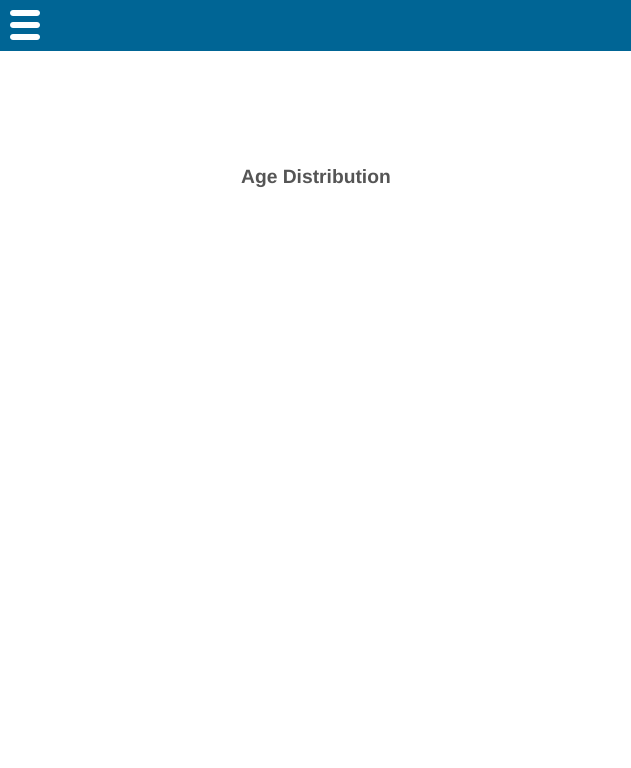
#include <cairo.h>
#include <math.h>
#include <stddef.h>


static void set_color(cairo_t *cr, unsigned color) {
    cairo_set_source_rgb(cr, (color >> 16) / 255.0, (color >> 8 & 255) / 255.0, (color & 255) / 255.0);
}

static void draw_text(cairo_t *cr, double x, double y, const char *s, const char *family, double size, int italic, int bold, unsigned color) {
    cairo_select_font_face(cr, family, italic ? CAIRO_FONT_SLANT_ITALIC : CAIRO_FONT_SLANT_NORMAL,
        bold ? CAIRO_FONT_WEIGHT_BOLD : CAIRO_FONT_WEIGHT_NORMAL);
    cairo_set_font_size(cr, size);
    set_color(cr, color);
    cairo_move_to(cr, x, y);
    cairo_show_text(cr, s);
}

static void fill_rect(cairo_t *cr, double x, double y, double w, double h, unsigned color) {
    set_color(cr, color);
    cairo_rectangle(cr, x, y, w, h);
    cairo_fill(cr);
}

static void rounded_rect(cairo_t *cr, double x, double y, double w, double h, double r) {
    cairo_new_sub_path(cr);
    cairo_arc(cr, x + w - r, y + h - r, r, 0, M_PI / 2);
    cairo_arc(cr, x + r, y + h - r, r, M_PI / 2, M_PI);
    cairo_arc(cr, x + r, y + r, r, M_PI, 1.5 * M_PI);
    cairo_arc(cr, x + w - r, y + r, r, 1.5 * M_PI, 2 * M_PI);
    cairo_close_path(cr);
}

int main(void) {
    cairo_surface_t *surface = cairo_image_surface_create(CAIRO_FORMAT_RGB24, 631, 768);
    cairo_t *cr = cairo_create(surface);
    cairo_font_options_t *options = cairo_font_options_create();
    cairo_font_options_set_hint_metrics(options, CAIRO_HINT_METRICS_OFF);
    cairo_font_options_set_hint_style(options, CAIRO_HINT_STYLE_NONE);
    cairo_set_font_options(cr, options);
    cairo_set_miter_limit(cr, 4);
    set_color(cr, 0xFFFFFF);
    cairo_paint(cr);
    fill_rect(cr, 0, 0, 631, 51, 0x006595);
    set_color(cr, 0xFFFFFF);
    rounded_rect(cr, 10, 10, 30, 6, 3);
    cairo_fill(cr);
    rounded_rect(cr, 10, 22, 30, 6, 3);
    cairo_fill(cr);
    rounded_rect(cr, 10, 34, 30, 6, 3);
    cairo_fill(cr);
    draw_text(cr, 241, 183, "Age Distribution", "Liberation Sans", 19.25, 0, 1, 0x555555);
    cairo_surface_write_to_png(surface, "output.png");
    cairo_font_options_destroy(options);
    cairo_destroy(cr);
    cairo_surface_destroy(surface);
    return 0;
}
